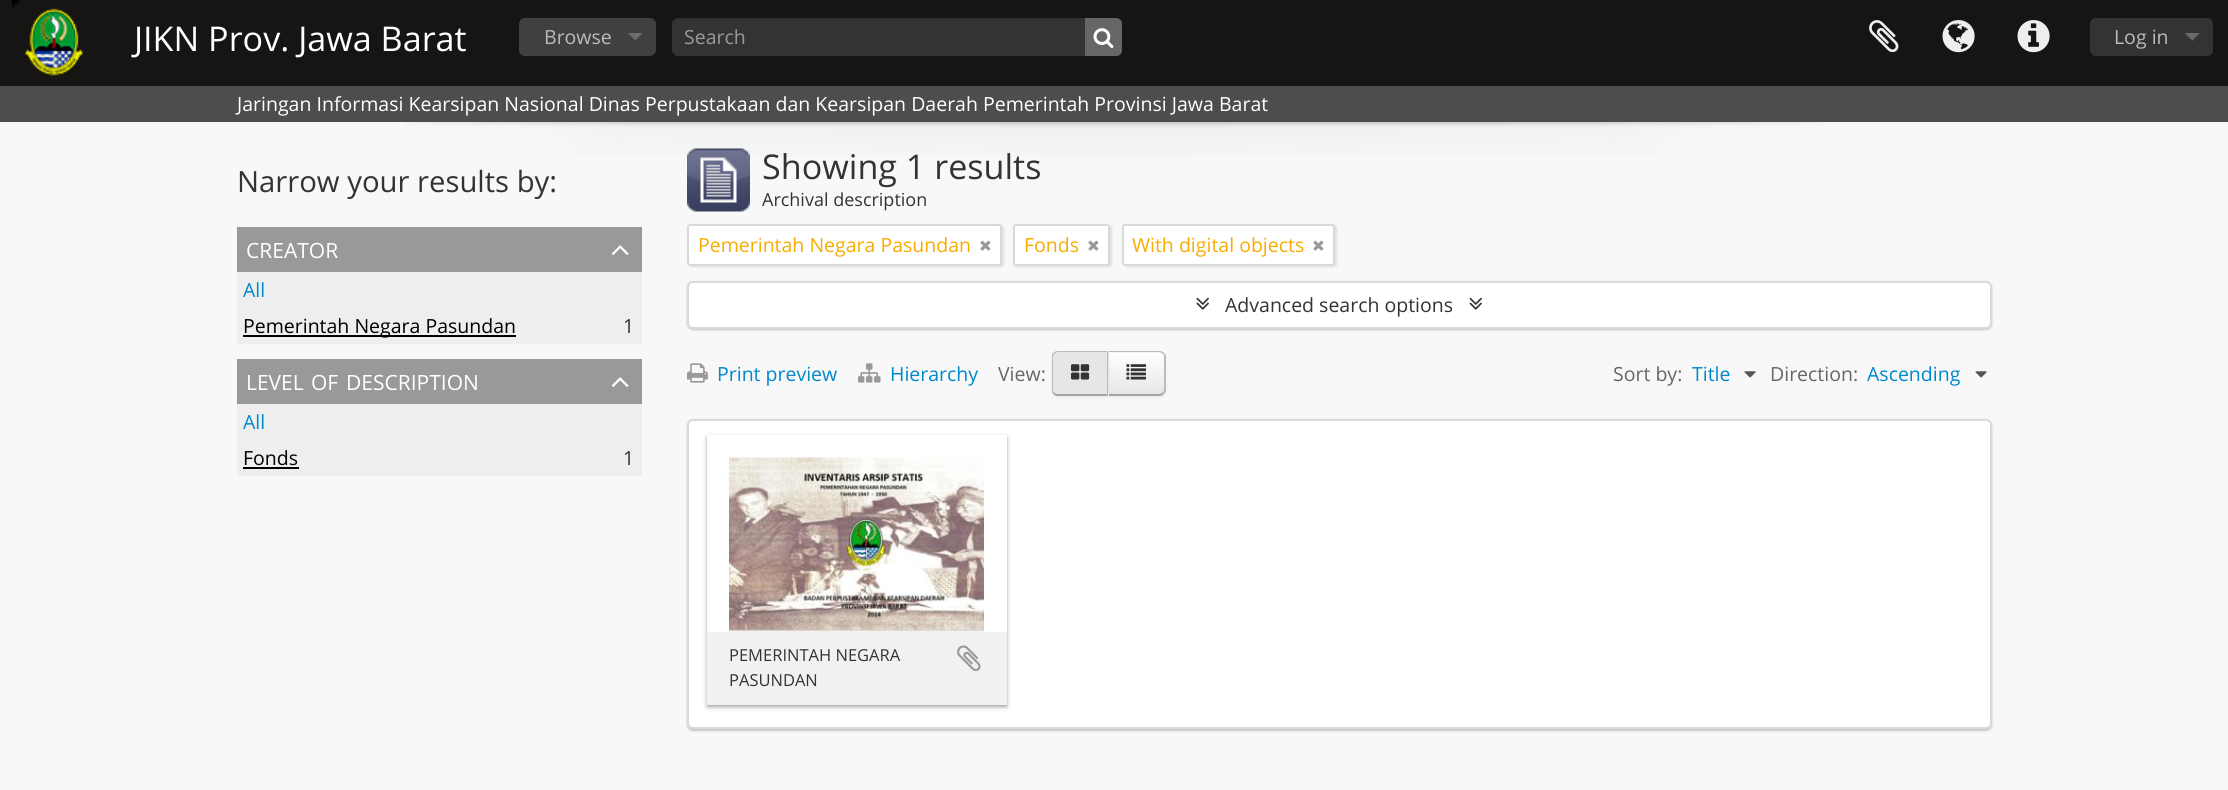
#include <cairo.h>
#include <math.h>
#include <stddef.h>


static void set_color(cairo_t *cr, unsigned color) {
    cairo_set_source_rgb(cr, (color >> 16) / 255.0, (color >> 8 & 255) / 255.0, (color & 255) / 255.0);
}

static void draw_text(cairo_t *cr, double x, double y, const char *s, const char *family, double size, int italic, int bold, unsigned color) {
    cairo_select_font_face(cr, family, italic ? CAIRO_FONT_SLANT_ITALIC : CAIRO_FONT_SLANT_NORMAL,
        bold ? CAIRO_FONT_WEIGHT_BOLD : CAIRO_FONT_WEIGHT_NORMAL);
    cairo_set_font_size(cr, size);
    set_color(cr, color);
    cairo_move_to(cr, x, y);
    cairo_show_text(cr, s);
}

static void fill_rect(cairo_t *cr, double x, double y, double w, double h, unsigned color) {
    set_color(cr, color);
    cairo_rectangle(cr, x, y, w, h);
    cairo_fill(cr);
}

static void rounded_rect(cairo_t *cr, double x, double y, double w, double h, double r) {
    cairo_new_sub_path(cr);
    cairo_arc(cr, x + w - r, y + h - r, r, 0, M_PI / 2);
    cairo_arc(cr, x + r, y + h - r, r, M_PI / 2, M_PI);
    cairo_arc(cr, x + r, y + r, r, M_PI, 1.5 * M_PI);
    cairo_arc(cr, x + w - r, y + r, r, 1.5 * M_PI, 2 * M_PI);
    cairo_close_path(cr);
}

static void draw_shadow(cairo_t *cr, double x, double y, double w, double h, double r, double blur, double alpha) {
    cairo_push_group_with_content(cr, CAIRO_CONTENT_ALPHA);
    cairo_set_operator(cr, CAIRO_OPERATOR_SOURCE);
    for (int i = 15; i >= -15 && fmin(w, h) + blur * i / 3 > 0; i -= 2) {
        double e = blur * i / 6;
        cairo_set_source_rgba(cr, 0, 0, 0, alpha * erfc((i - 1) / 8.5) / 2);
        rounded_rect(cr, x - e, y - e, w + 2 * e, h + 2 * e, fmax(0, fmin(r + e + blur * .6, fmin(w, h) / 2 + e)));
        cairo_fill(cr);
    }
    cairo_pattern_t *soft = cairo_pop_group(cr);
    cairo_mask(cr, soft);
    cairo_pattern_destroy(soft);
}

static void draw_image(cairo_t *cr, const char *path, double x, double y, double w, double h) {
    cairo_surface_t *image = cairo_image_surface_create_from_png(path);
    cairo_save(cr);
    cairo_set_source_surface(cr, image, x, y);
    cairo_rectangle(cr, x, y, w, h);
    cairo_fill(cr);
    cairo_restore(cr);
    cairo_surface_destroy(image);
}

int main(void) {
    cairo_surface_t *surface = cairo_image_surface_create(CAIRO_FORMAT_RGB24, 2228, 790);
    cairo_t *cr = cairo_create(surface);
    cairo_font_options_t *options = cairo_font_options_create();
    cairo_font_options_set_hint_metrics(options, CAIRO_HINT_METRICS_OFF);
    cairo_font_options_set_hint_style(options, CAIRO_HINT_STYLE_NONE);
    cairo_set_font_options(cr, options);
    cairo_set_miter_limit(cr, 4);
    cairo_pattern_t *gradient;
    set_color(cr, 0xF8F8F8);
    cairo_paint(cr);
    fill_rect(cr, 0, 0, 2228, 86, 0x161514);
    draw_image(cr, "assets/img1.png", 12, 0, 71, 76);
    draw_text(cr, 134, 51, "JIKN Prov. Jawa Barat", "Open Sans", 34.1, 0, 0, 0xFFFFFF);
    set_color(cr, 0x404040);
    rounded_rect(cr, 519, 18, 137, 38, 6);
    cairo_fill(cr);
    draw_image(cr, "assets/img2.png", 628, 33, 15, 8);
    draw_text(cr, 544, 44, "Browse", "Open Sans", 19.5, 0, 0, 0xBBBBBB);
    set_color(cr, 0x333333);
    rounded_rect(cr, 672, 18, 450, 38, 6);
    cairo_fill(cr);
    cairo_set_source_rgba(cr, 0, 0, 0, 0.07);
    cairo_new_path(cr);
    cairo_move_to(cr, 678, 20);
    cairo_line_to(cr, 1116, 20);
    cairo_curve_to(cr, 1119, 20, 1122, 22, 1122, 26);
    cairo_line_to(cr, 1122, 24);
    cairo_curve_to(cr, 1122, 21, 1119, 18, 1116, 18);
    cairo_line_to(cr, 678, 18);
    cairo_curve_to(cr, 675, 18, 672, 21, 672, 24);
    cairo_line_to(cr, 672, 26);
    cairo_curve_to(cr, 672, 22, 675, 20, 678, 20);
    cairo_close_path(cr);
    cairo_fill(cr);
    draw_text(cr, 684, 44, "Search", "Open Sans", 19.5, 0, 0, 0x999999);
    set_color(cr, 0x666666);
    cairo_new_path(cr);
    cairo_move_to(cr, 1085, 18);
    cairo_line_to(cr, 1116, 18);
    cairo_curve_to(cr, 1119.5, 18, 1122, 20.5, 1122, 24);
    cairo_line_to(cr, 1122, 50);
    cairo_curve_to(cr, 1122, 53.5, 1119.5, 56, 1116, 56);
    cairo_line_to(cr, 1085, 56);
    cairo_close_path(cr);
    cairo_fill(cr);
    draw_image(cr, "assets/img3.png", 1093, 28, 21, 20);
    draw_image(cr, "assets/img4.png", 1869, 20, 30, 33);
    draw_image(cr, "assets/img5.png", 1942, 20, 33, 33);
    draw_image(cr, "assets/img6.png", 2017, 20, 33, 33);
    set_color(cr, 0x333333);
    rounded_rect(cr, 2090, 18, 123, 38, 6);
    cairo_fill(cr);
    draw_image(cr, "assets/img7.png", 2185, 33, 15, 8);
    draw_text(cr, 2114, 44, "Log in", "Open Sans", 19.5, 0, 0, 0xBBBBBB);
    draw_image(cr, "assets/img8.png", 405, 121, 1419, 36);
    cairo_set_source_rgba(cr, 0.086, 0.082, 0.078, 0.75);
    cairo_rectangle(cr, 0, 86, 2228, 36);
    cairo_fill(cr);
    draw_text(cr, 237, 111, "Jaringan Informasi Kearsipan Nasional Dinas Perpustakaan dan Kearsipan Daerah Pemerintah Provinsi Jawa Barat", "Open Sans", 19.5, 0, 0, 0xFFFFFF);
    draw_text(cr, 237, 192, "Narrow your results by:", "Open Sans", 29.25, 0, 0, 0x333333);
    fill_rect(cr, 237, 227, 405, 45, 0x999999);
    draw_text(cr, 246, 258, "CREATOR", "Open Sans", 21, 0, 0, 0xFFFFFF);
    draw_image(cr, "assets/img9.png", 611, 245, 18, 10);
    fill_rect(cr, 237, 272, 405, 72, 0xEEEEEE);
    draw_text(cr, 243, 297, "All", "Open Sans", 19.5, 0, 0, 0x0088CC);
    fill_rect(cr, 243, 335, 273, 2, 0x000000);
    draw_text(cr, 243, 333, "Pemerintah Negara Pasundan", "Open Sans", 19.5, 0, 0, 0x000000);
    draw_text(cr, 623, 333, "1", "Open Sans", 19.5, 0, 0, 0x333333);
    fill_rect(cr, 237, 359, 405, 45, 0x999999);
    draw_text(cr, 246, 390, "LEVEL", "Open Sans", 21, 0, 0, 0xFFFFFF);
    draw_text(cr, 311, 390, "OF", "Open Sans", 21, 0, 0, 0xFFFFFF);
    draw_text(cr, 346, 390, "DESCRIPTION", "Open Sans", 21, 0, 0, 0xFFFFFF);
    draw_image(cr, "assets/img9.png", 611, 377, 18, 10);
    fill_rect(cr, 237, 404, 405, 72, 0xEEEEEE);
    draw_text(cr, 243, 429, "All", "Open Sans", 19.5, 0, 0, 0x0088CC);
    draw_text(cr, 243, 465, "Fonds", "Open Sans", 19.5, 0, 0, 0x000000);
    fill_rect(cr, 243, 467, 56, 2, 0x000000);
    draw_text(cr, 623, 465, "1", "Open Sans", 19.5, 0, 0, 0x333333);
    draw_image(cr, "assets/img10.png", 687, 148, 63, 64);
    draw_text(cr, 762, 179, "Showing 1 results", "Open Sans", 34.1, 0, 0, 0x333333);
    draw_text(cr, 762, 206, "Archival description", "Open Sans", 18, 0, 0, 0x333333);
    set_color(cr, 0x000000);
    draw_shadow(cr, 689, 225, 315, 42, 3, 1, 0.1);
    set_color(cr, 0xFFFFFF);
    rounded_rect(cr, 688, 225, 313, 40, 2);
    cairo_fill_preserve(cr);
    set_color(cr, 0xD9D9D9);
    cairo_stroke(cr);
    draw_text(cr, 698, 252, "Pemerintah Negara Pasundan", "Open Sans", 19.5, 0, 0, 0xF6AC00);
    draw_image(cr, "assets/img11.png", 980, 240, 11, 11);
    set_color(cr, 0x000000);
    draw_shadow(cr, 1014, 225, 98, 42, 3, 1, 0.1);
    set_color(cr, 0xFFFFFF);
    rounded_rect(cr, 1014, 225, 95, 40, 2);
    cairo_fill_preserve(cr);
    set_color(cr, 0xD9D9D9);
    cairo_stroke(cr);
    draw_text(cr, 1024, 252, "Fonds", "Open Sans", 19.5, 0, 0, 0xF6AC00);
    draw_image(cr, "assets/img11.png", 1088, 240, 11, 11);
    set_color(cr, 0x000000);
    draw_shadow(cr, 1124, 225, 213, 42, 3, 1, 0.1);
    set_color(cr, 0xFFFFFF);
    rounded_rect(cr, 1123, 225, 211, 40, 2);
    cairo_fill_preserve(cr);
    set_color(cr, 0xD9D9D9);
    cairo_stroke(cr);
    draw_text(cr, 1132, 252, "With digital objects", "Open Sans", 19.5, 0, 0, 0xF6AC00);
    draw_image(cr, "assets/img11.png", 1313, 240, 11, 11);
    set_color(cr, 0x000000);
    draw_shadow(cr, 687, 282, 1305, 48, 6, 1, 0.2);
    set_color(cr, 0xFFFFFF);
    rounded_rect(cr, 688, 282, 1303, 46, 5);
    cairo_fill_preserve(cr);
    set_color(cr, 0xD9D9D9);
    cairo_stroke(cr);
    draw_image(cr, "assets/img12.png", 1196, 297, 13, 13);
    draw_text(cr, 1225, 312, "Advanced search options", "Open Sans", 19.5, 0, 0, 0x333333);
    draw_image(cr, "assets/img12.png", 1469, 297, 13, 13);
    draw_image(cr, "assets/img13.png", 687, 363, 21, 20);
    draw_text(cr, 717, 381, "Print preview", "Open Sans", 19.5, 0, 0, 0x0088CC);
    draw_image(cr, "assets/img14.png", 858, 363, 23, 20);
    draw_text(cr, 890, 381, "Hierarchy", "Open Sans", 19.5, 0, 0, 0x0088CC);
    draw_text(cr, 998, 381, "View:", "Open Sans", 19.5, 0, 0, 0x666666);
    set_color(cr, 0x000000);
    draw_shadow(cr, 1107, 353, 59, 45, 6, 1.5, 0.05);
    set_color(cr, 0xF5F5F5);
    cairo_new_path(cr);
    cairo_move_to(cr, 1107, 351);
    cairo_line_to(cr, 1160, 351);
    cairo_curve_to(cr, 1163.5, 351, 1166, 353.5, 1166, 357);
    cairo_line_to(cr, 1166, 390);
    cairo_curve_to(cr, 1166, 393.5, 1163.5, 396, 1160, 396);
    cairo_line_to(cr, 1107, 396);
    cairo_close_path(cr);
    cairo_fill(cr);
    cairo_save(cr);
    cairo_new_path(cr);
    cairo_move_to(cr, 1107, 351);
    cairo_line_to(cr, 1160, 351);
    cairo_curve_to(cr, 1163.5, 351, 1166, 353.5, 1166, 357);
    cairo_line_to(cr, 1166, 390);
    cairo_curve_to(cr, 1166, 393.5, 1163.5, 396, 1160, 396);
    cairo_line_to(cr, 1107, 396);
    cairo_close_path(cr);
    cairo_clip(cr);
    gradient = cairo_pattern_create_linear(1136, 353, 1136, 395);
    cairo_pattern_add_color_stop_rgba(gradient, 0, 1, 1, 1, 1);
    cairo_pattern_add_color_stop_rgba(gradient, 1, 0.902, 0.902, 0.902, 1);
    cairo_set_source(cr, gradient);
    cairo_pattern_destroy(gradient);
    cairo_rectangle(cr, 1109, 353, 57, 42);
    cairo_fill(cr);
    cairo_restore(cr);
    set_color(cr, 0xBBBBBB);
    cairo_new_path(cr);
    cairo_move_to(cr, 1107, 351);
    cairo_line_to(cr, 1108, 352);
    cairo_line_to(cr, 1160, 352);
    cairo_line_to(cr, 1163, 354);
    cairo_line_to(cr, 1164, 353);
    cairo_curve_to(cr, 1163, 352, 1161, 351, 1160, 351);
    cairo_close_path(cr);
    cairo_fill(cr);
    cairo_new_path(cr);
    cairo_move_to(cr, 1166, 392);
    cairo_line_to(cr, 1164, 394);
    cairo_line_to(cr, 1162, 393);
    cairo_curve_to(cr, 1163, 392, 1164, 391, 1164, 390);
    cairo_line_to(cr, 1164, 357);
    cairo_curve_to(cr, 1164, 356, 1164, 355, 1163, 354);
    cairo_line_to(cr, 1164, 353);
    cairo_line_to(cr, 1166, 355);
    cairo_close_path(cr);
    cairo_fill(cr);
    set_color(cr, 0xA2A2A2);
    cairo_new_path(cr);
    cairo_move_to(cr, 1160, 396);
    cairo_curve_to(cr, 1161, 396, 1163, 395, 1164, 394);
    cairo_line_to(cr, 1162, 393);
    cairo_line_to(cr, 1160, 394);
    cairo_line_to(cr, 1109, 394);
    cairo_line_to(cr, 1107, 396);
    cairo_close_path(cr);
    cairo_fill(cr);
    set_color(cr, 0x000000);
    draw_shadow(cr, 1052, 353, 57, 45, 6, 1.5, 0.05);
    set_color(cr, 0xE6E6E6);
    cairo_new_path(cr);
    cairo_move_to(cr, 1058, 351);
    cairo_line_to(cr, 1109, 351);
    cairo_line_to(cr, 1109, 396);
    cairo_line_to(cr, 1058, 396);
    cairo_curve_to(cr, 1054.5, 396, 1052, 393.5, 1052, 390);
    cairo_line_to(cr, 1052, 357);
    cairo_curve_to(cr, 1052, 353.5, 1054.5, 351, 1058, 351);
    cairo_close_path(cr);
    cairo_fill(cr);
    set_color(cr, 0xBBBBBB);
    cairo_new_path(cr);
    cairo_move_to(cr, 1058, 351);
    cairo_curve_to(cr, 1056, 351, 1054, 352, 1053, 353);
    cairo_line_to(cr, 1054, 354);
    cairo_line_to(cr, 1057, 352);
    cairo_line_to(cr, 1107, 352);
    cairo_line_to(cr, 1108, 351);
    cairo_close_path(cr);
    cairo_fill(cr);
    cairo_new_path(cr);
    cairo_move_to(cr, 1108, 352);
    cairo_line_to(cr, 1108, 396);
    cairo_line_to(cr, 1106, 394);
    cairo_line_to(cr, 1107, 394);
    cairo_line_to(cr, 1107, 352);
    cairo_close_path(cr);
    cairo_fill(cr);
    set_color(cr, 0xA2A2A2);
    cairo_new_path(cr);
    cairo_move_to(cr, 1058, 396);
    cairo_line_to(cr, 1108, 396);
    cairo_line_to(cr, 1106, 394);
    cairo_line_to(cr, 1058, 394);
    cairo_curve_to(cr, 1057, 394, 1055, 394, 1055, 393);
    cairo_line_to(cr, 1053, 394);
    cairo_curve_to(cr, 1054, 395, 1056, 396, 1058, 396);
    cairo_close_path(cr);
    cairo_fill(cr);
    set_color(cr, 0xBBBBBB);
    cairo_new_path(cr);
    cairo_move_to(cr, 1053, 353);
    cairo_curve_to(cr, 1052, 354, 1052, 356, 1052, 357);
    cairo_line_to(cr, 1052, 390);
    cairo_curve_to(cr, 1052, 391, 1052, 393, 1053, 394);
    cairo_line_to(cr, 1055, 393);
    cairo_curve_to(cr, 1054, 392, 1053, 391, 1053, 390);
    cairo_line_to(cr, 1053, 357);
    cairo_curve_to(cr, 1053, 356, 1053, 355, 1054, 354);
    cairo_close_path(cr);
    cairo_fill(cr);
    draw_image(cr, "assets/img15.png", 1071, 364, 19, 16);
    draw_image(cr, "assets/img16.png", 1126, 364, 20, 16);
    draw_text(cr, 1613, 381, "Sort by:", "Open Sans", 19.5, 0, 0, 0x666666);
    draw_text(cr, 1692, 381, "Title", "Open Sans", 19.5, 0, 0, 0x0088CC);
    draw_image(cr, "assets/img17.png", 1744, 371, 12, 7);
    draw_text(cr, 1770, 381, "Direction:", "Open Sans", 19.5, 0, 0, 0x666666);
    draw_text(cr, 1867, 381, "Ascending", "Open Sans", 19.5, 0, 0, 0x0088CC);
    draw_image(cr, "assets/img17.png", 1975, 371, 12, 7);
    set_color(cr, 0x000000);
    draw_shadow(cr, 687, 420, 1305, 311, 6, 1, 0.2);
    set_color(cr, 0xFFFFFF);
    rounded_rect(cr, 688, 420, 1303, 308, 5);
    cairo_fill_preserve(cr);
    set_color(cr, 0xD9D9D9);
    cairo_stroke(cr);
    set_color(cr, 0x191919);
    draw_shadow(cr, 707, 437, 300, 270, 0, 2, 0.4);
    fill_rect(cr, 707, 435, 300, 197, 0xFFFFFF);
    draw_image(cr, "assets/img18.png", 729, 457, 255, 175);
    fill_rect(cr, 707, 632, 300, 73, 0xF2F0F0);
    draw_text(cr, 729, 661, "PEMERINTAH NEGARA", "Open Sans", 16.5, 0, 0, 0x333333);
    draw_image(cr, "assets/img19.png", 957, 645, 24, 26);
    draw_text(cr, 729, 686, "PASUNDAN", "Open Sans", 16.5, 0, 0, 0x333333);
    cairo_surface_write_to_png(surface, "output.png");
    cairo_font_options_destroy(options);
    cairo_destroy(cr);
    cairo_surface_destroy(surface);
    return 0;
}
